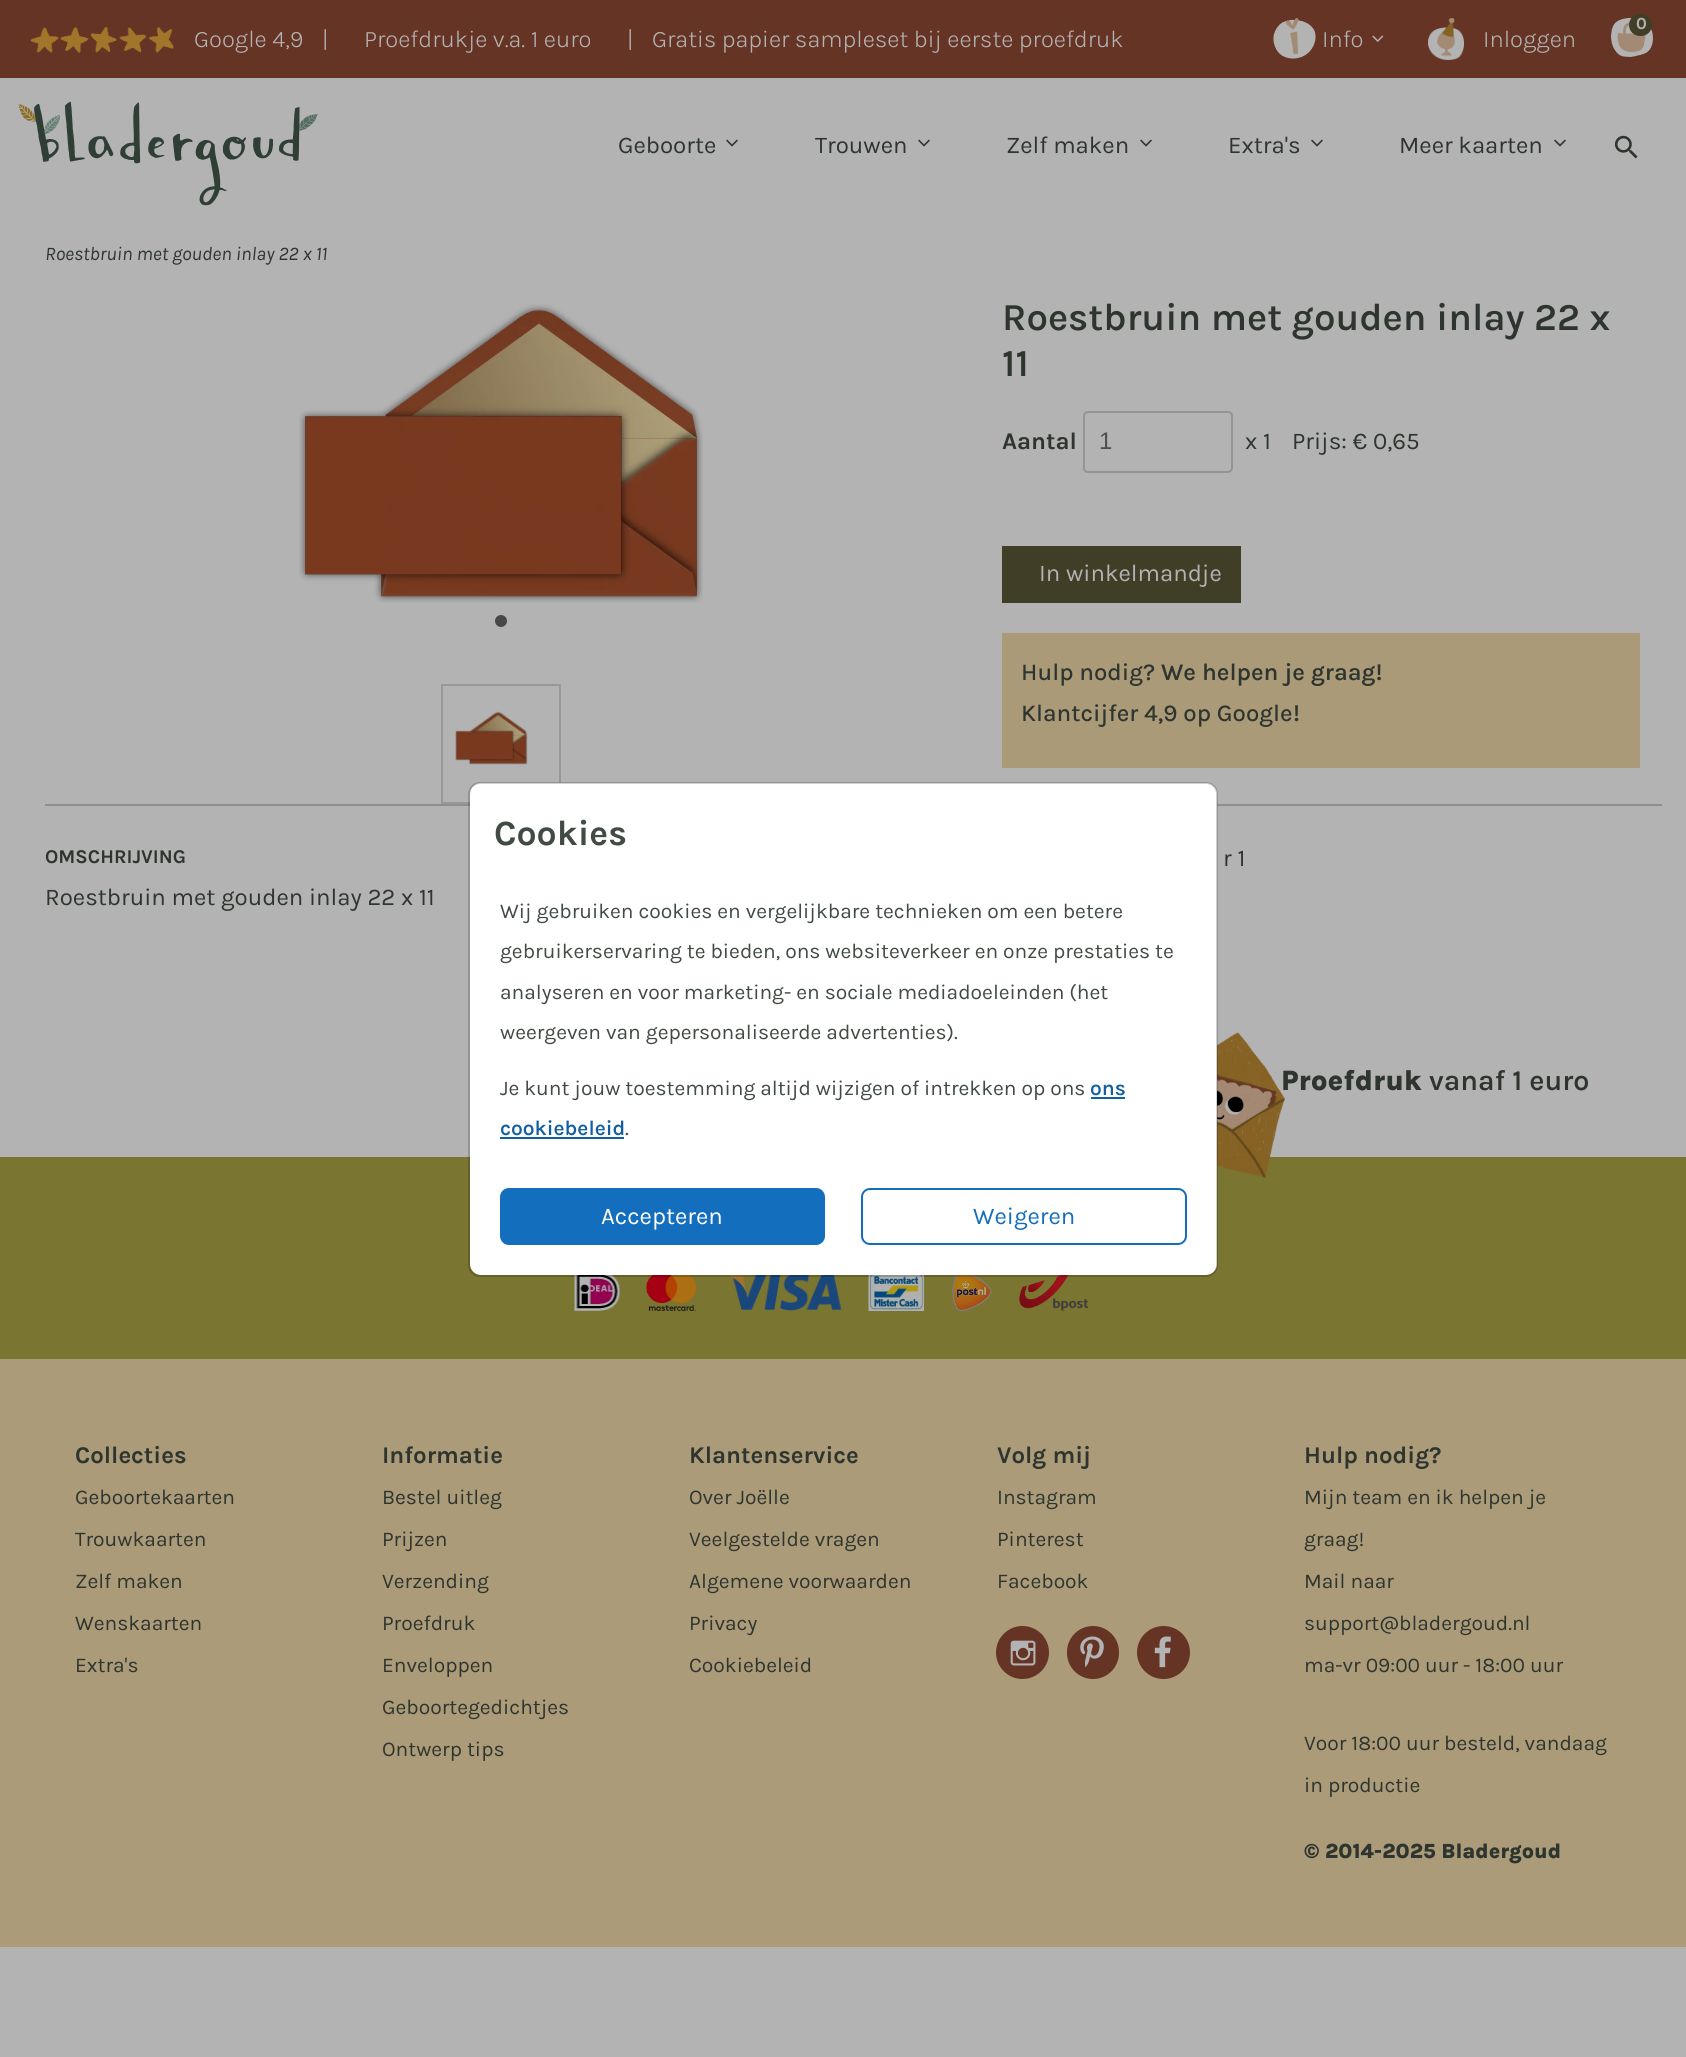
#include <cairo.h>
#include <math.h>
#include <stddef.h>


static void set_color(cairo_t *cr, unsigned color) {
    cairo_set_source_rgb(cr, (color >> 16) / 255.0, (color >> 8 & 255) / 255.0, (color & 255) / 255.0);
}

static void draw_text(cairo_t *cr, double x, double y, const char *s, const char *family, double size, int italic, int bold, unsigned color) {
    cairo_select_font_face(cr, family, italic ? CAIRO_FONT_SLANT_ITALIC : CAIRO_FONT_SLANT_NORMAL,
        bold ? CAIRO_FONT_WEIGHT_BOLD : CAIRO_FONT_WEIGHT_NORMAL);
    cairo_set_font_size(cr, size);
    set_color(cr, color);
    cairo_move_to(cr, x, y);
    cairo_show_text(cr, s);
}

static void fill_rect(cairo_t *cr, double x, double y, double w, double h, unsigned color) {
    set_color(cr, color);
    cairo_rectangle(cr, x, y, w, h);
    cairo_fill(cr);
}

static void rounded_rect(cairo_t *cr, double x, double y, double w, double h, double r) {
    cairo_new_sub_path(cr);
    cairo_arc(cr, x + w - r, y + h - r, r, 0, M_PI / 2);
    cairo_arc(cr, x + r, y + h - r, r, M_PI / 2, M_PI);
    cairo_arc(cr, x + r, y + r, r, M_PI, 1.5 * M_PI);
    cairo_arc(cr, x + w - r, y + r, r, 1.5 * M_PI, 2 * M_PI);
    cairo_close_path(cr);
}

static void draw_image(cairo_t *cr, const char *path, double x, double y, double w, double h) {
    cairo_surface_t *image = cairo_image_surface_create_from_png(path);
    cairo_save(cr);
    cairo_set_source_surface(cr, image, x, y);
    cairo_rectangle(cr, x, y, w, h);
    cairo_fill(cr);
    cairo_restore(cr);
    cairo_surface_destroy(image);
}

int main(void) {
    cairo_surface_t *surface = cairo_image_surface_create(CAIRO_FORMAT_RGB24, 1686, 2057);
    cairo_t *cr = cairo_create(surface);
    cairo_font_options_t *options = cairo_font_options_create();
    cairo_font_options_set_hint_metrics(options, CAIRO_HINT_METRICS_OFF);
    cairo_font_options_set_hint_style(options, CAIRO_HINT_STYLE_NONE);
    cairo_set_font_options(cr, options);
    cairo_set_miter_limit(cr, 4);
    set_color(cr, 0xB3B3B3);
    cairo_paint(cr);
    fill_rect(cr, 0, 0, 1686, 78, 0x663424);
    draw_image(cr, "assets/img1.png", 30, 27, 144, 26);
    draw_text(cr, 194, 47, "Google 4,9", "Karla Light", 24, 0, 0, 0xB3B3B3);
    draw_text(cr, 322, 47, "|", "Karla Light", 24, 0, 0, 0xB3B3B3);
    draw_text(cr, 364, 47, "Proefdrukje v.a. 1 euro", "Karla Light", 24, 0, 0, 0xB3B3B3);
    draw_text(cr, 627, 47, "|", "Karla Light", 24, 0, 0, 0xB3B3B3);
    draw_text(cr, 652, 47, "Gratis papier sampleset bij eerste proefdruk", "Karla Light", 24, 0, 0, 0xB3B3B3);
    draw_image(cr, "assets/img2.png", 1273, 18, 43, 41);
    draw_text(cr, 1322, 47, "Info", "Karla Light", 24, 0, 0, 0xB3B3B3);
    draw_image(cr, "assets/img3.png", 1372, 35, 12, 7);
    draw_image(cr, "assets/img4.png", 1611, 18, 42, 39);
    set_color(cr, 0x403E27);
    rounded_rect(cr, 1629, 14, 23, 22, 11);
    cairo_fill(cr);
    draw_text(cr, 1636, 29, "0", "Karla", 17, 0, 1, 0xB3B3B3);
    draw_image(cr, "assets/img5.png", 1428, 18, 36, 42);
    draw_text(cr, 1483, 47, "Inloggen", "Karla Light", 24, 0, 0, 0xB3B3B3);
    draw_image(cr, "assets/img6.png", 18, 101, 300, 105);
    draw_text(cr, 618, 153, "Geboorte", "Karla", 24, 0, 0, 0x2E352F);
    draw_image(cr, "assets/img7.png", 726, 139, 12, 8);
    draw_text(cr, 815, 153, "Trouwen", "Karla", 24, 0, 0, 0x2E352F);
    draw_image(cr, "assets/img7.png", 918, 139, 12, 8);
    draw_text(cr, 1006, 153, "Zelf maken", "Karla", 24, 0, 0, 0x2E352F);
    draw_image(cr, "assets/img7.png", 1140, 139, 12, 8);
    draw_text(cr, 1228, 153, "Extra's", "Karla", 24, 0, 0, 0x2E352F);
    draw_image(cr, "assets/img7.png", 1311, 139, 12, 8);
    draw_text(cr, 1399, 153, "Meer kaarten", "Karla", 24, 0, 0, 0x2E352F);
    draw_image(cr, "assets/img7.png", 1554, 139, 12, 8);
    draw_image(cr, "assets/img8.png", 1614, 135, 24, 24);
    draw_text(cr, 45, 260, "Roestbruin met gouden inlay 22 x 11", "Karla", 19.25, 1, 0, 0x2E352F);
    draw_image(cr, "assets/img9.png", 299, 304, 404, 299);
    set_color(cr, 0x484848);
    cairo_arc(cr, 501, 621, 6, 0, 2 * M_PI);
    cairo_fill(cr);
    cairo_rectangle(cr, 442, 685, 118, 118);
    set_color(cr, 0x989898);
    cairo_stroke(cr);
    draw_image(cr, "assets/img10.png", 455, 711, 73, 54);
    draw_text(cr, 1002, 330, "Roestbruin met gouden inlay 22 x", "Karla SemiBold", 38.4, 0, 0, 0x2E352F);
    draw_text(cr, 1002, 376, "11", "Karla SemiBold", 38.4, 0, 0, 0x2E352F);
    draw_text(cr, 1002, 449, "Aantal", "Karla", 24, 0, 1, 0x2E352F);
    rounded_rect(cr, 1084, 412, 148, 60, 4);
    set_color(cr, 0x949494);
    cairo_stroke(cr);
    draw_text(cr, 1099, 449, "1", "Liberation Sans", 24, 0, 0, 0x4D5053);
    draw_text(cr, 1245, 449, "x 1", "Karla", 24, 0, 0, 0x2E352F);
    draw_text(cr, 1292, 449, "Prijs: € 0,65", "Karla", 24, 0, 0, 0x2E352F);
    fill_rect(cr, 1002, 546, 239, 57, 0x403E27);
    draw_text(cr, 1039, 581, "In winkelmandje", "Karla", 24, 0, 0, 0xB3B3B3);
    fill_rect(cr, 1002, 633, 638, 135, 0xAB9A78);
    draw_text(cr, 1021, 680, "Hulp nodig?", "Karla Medium", 24, 0, 0, 0x2E352F);
    draw_text(cr, 1161, 680, "We helpen je graag!", "Karla SemiBold", 24, 0, 0, 0x2E352F);
    draw_text(cr, 1021, 721, "Klantcijfer 4,9 op Google", "Karla Medium", 24, 0, 0, 0x2E352F);
    draw_text(cr, 1293, 721, "!", "Karla SemiBold", 24, 0, 0, 0x2E352F);
    fill_rect(cr, 45, 804, 425, 2, 0x8F8F8F);
    draw_text(cr, 45, 863, "OMSCHRIJVING", "Karla", 19.5, 0, 1, 0x2E352F);
    draw_text(cr, 45, 905, "Roestbruin met gouden inlay 22 x 11", "Karla", 24, 0, 0, 0x2E352F);
    fill_rect(cr, 1217, 804, 445, 2, 0x8F8F8F);
    draw_text(cr, 1223, 866, "r 1", "Karla", 24, 0, 0, 0x2E352F);
    fill_rect(cr, 0, 1157, 1686, 202, 0x7A7531);
    set_color(cr, 0xFFFFFF);
    rounded_rect(cr, 470, 783, 747, 492, 11);
    cairo_fill(cr);
    draw_text(cr, 1281, 1090, "Proefdruk", "Karla ExtraBold", 28.75, 0, 0, 0x2E352F);
    draw_image(cr, "assets/img11.png", 1217, 1032, 68, 146);
    draw_image(cr, "assets/img12.png", 574, 1275, 46, 36);
    draw_image(cr, "assets/img13.png", 646, 1275, 50, 36);
    draw_image(cr, "assets/img14.png", 726, 1275, 116, 36);
    draw_image(cr, "assets/img15.png", 868, 1275, 56, 36);
    draw_image(cr, "assets/img16.png", 952, 1275, 40, 36);
    draw_image(cr, "assets/img17.png", 1019, 1275, 70, 36);
    rounded_rect(cr, 469, 783, 748, 493, 11);
    cairo_set_source_rgba(cr, 0, 0, 0, 0.18);
    cairo_stroke(cr);
    draw_text(cr, 494, 845, "Cookies", "Karla", 35.5, 0, 1, 0x414B43);
    draw_text(cr, 500, 918, "Wij gebruiken cookies en vergelijkbare technieken om een betere", "Karla", 21, 0, 0, 0x414B43);
    draw_text(cr, 500, 958, "gebruikerservaring te bieden, ons websiteverkeer en onze prestaties te", "Karla", 21, 0, 0, 0x414B43);
    draw_text(cr, 500, 999, "analyseren en voor marketing- en sociale mediadoeleinden (het", "Karla", 21, 0, 0, 0x414B43);
    draw_text(cr, 500, 1039, "weergeven van gepersonaliseerde advertenties).", "Karla", 21, 0, 0, 0x414B43);
    draw_text(cr, 500, 1095, "Je kunt jouw toestemming altijd wijzigen of intrekken op ons", "Karla", 21, 0, 0, 0x414B43);
    draw_text(cr, 1090, 1095, "ons", "Karla SemiBold", 21, 0, 0, 0x115EA2);
    fill_rect(cr, 1091, 1097, 34, 2, 0x115EA2);
    draw_text(cr, 500, 1135, "cookiebeleid", "Karla SemiBold", 21, 0, 0, 0x115EA2);
    fill_rect(cr, 500, 1137, 124, 2, 0x115EA2);
    draw_text(cr, 625, 1135, ".", "Karla", 21, 0, 0, 0x414B43);
    set_color(cr, 0x146EBE);
    rounded_rect(cr, 501, 1189, 323, 55, 8);
    cairo_fill_preserve(cr);
    cairo_stroke(cr);
    draw_text(cr, 601, 1224, "Accepteren", "Karla", 24, 0, 0, 0xFFFFFF);
    rounded_rect(cr, 862, 1189, 324, 55, 8);
    set_color(cr, 0x146EBE);
    cairo_stroke(cr);
    draw_text(cr, 973, 1224, "Weigeren", "Karla", 24, 0, 0, 0x146EBE);
    draw_text(cr, 1429, 1090, "vanaf 1 euro", "Karla SemiBold", 28.75, 0, 0, 0x2E352F);
    fill_rect(cr, 0, 1359, 1686, 588, 0xAC9B78);
    draw_text(cr, 75, 1463, "Collecties", "Karla", 24, 0, 1, 0x2E352F);
    draw_text(cr, 75, 1504, "Geboortekaarten", "Karla", 21, 0, 0, 0x2E352F);
    draw_text(cr, 75, 1546, "Trouwkaarten", "Karla", 21, 0, 0, 0x2E352F);
    draw_text(cr, 75, 1588, "Zelf maken", "Karla", 21, 0, 0, 0x2E352F);
    draw_text(cr, 75, 1630, "Wenskaarten", "Karla", 21, 0, 0, 0x2E352F);
    draw_text(cr, 75, 1672, "Extra's", "Karla", 21, 0, 0, 0x2E352F);
    draw_text(cr, 382, 1463, "Informatie", "Karla", 24, 0, 1, 0x2E352F);
    draw_text(cr, 382, 1504, "Bestel uitleg", "Karla", 21, 0, 0, 0x2E352F);
    draw_text(cr, 382, 1546, "Prijzen", "Karla", 21, 0, 0, 0x2E352F);
    draw_text(cr, 382, 1588, "Verzending", "Karla", 21, 0, 0, 0x2E352F);
    draw_text(cr, 382, 1630, "Proefdruk", "Karla", 21, 0, 0, 0x2E352F);
    draw_text(cr, 382, 1672, "Enveloppen", "Karla", 21, 0, 0, 0x2E352F);
    draw_text(cr, 382, 1714, "Geboortegedichtjes", "Karla", 21, 0, 0, 0x2E352F);
    draw_text(cr, 382, 1756, "Ontwerp tips", "Karla", 21, 0, 0, 0x2E352F);
    draw_text(cr, 689, 1463, "Klantenservice", "Karla", 24, 0, 1, 0x2E352F);
    draw_text(cr, 689, 1504, "Over Joëlle", "Karla", 21, 0, 0, 0x2E352F);
    draw_text(cr, 689, 1546, "Veelgestelde vragen", "Karla", 21, 0, 0, 0x2E352F);
    draw_text(cr, 689, 1588, "Algemene voorwaarden", "Karla", 21, 0, 0, 0x2E352F);
    draw_text(cr, 689, 1630, "Privacy", "Karla", 21, 0, 0, 0x2E352F);
    draw_text(cr, 689, 1672, "Cookiebeleid", "Karla", 21, 0, 0, 0x2E352F);
    draw_text(cr, 997, 1463, "Volg mij", "Karla", 24, 0, 1, 0x2E352F);
    draw_text(cr, 997, 1504, "Instagram", "Karla", 21, 0, 0, 0x2E352F);
    draw_text(cr, 997, 1546, "Pinterest", "Karla", 21, 0, 0, 0x2E352F);
    draw_text(cr, 997, 1588, "Facebook", "Karla", 21, 0, 0, 0x2E352F);
    set_color(cr, 0x663424);
    cairo_new_path(cr);
    cairo_arc(cr, 1022.5, 1652.5, 26.5, 0, 2 * M_PI);
    cairo_fill(cr);
    draw_image(cr, "assets/img18.png", 1010, 1640, 26, 26);
    rounded_rect(cr, 1067, 1626, 52, 53, 26);
    cairo_fill(cr);
    draw_image(cr, "assets/img19.png", 1080, 1636, 24, 32);
    cairo_arc(cr, 1163.5, 1652.5, 26.5, 0, 2 * M_PI);
    cairo_fill(cr);
    draw_image(cr, "assets/img20.png", 1154, 1636, 17, 32);
    draw_text(cr, 1304, 1463, "Hulp nodig?", "Karla", 24, 0, 1, 0x2E352F);
    draw_text(cr, 1304, 1504, "Mijn team en ik helpen je", "Karla", 21, 0, 0, 0x2E352F);
    draw_text(cr, 1304, 1546, "graag!", "Karla", 21, 0, 0, 0x2E352F);
    draw_text(cr, 1304, 1588, "Mail naar", "Karla", 21, 0, 0, 0x2E352F);
    draw_text(cr, 1304, 1630, "support@bladergoud.nl", "Karla", 21, 0, 0, 0x2E352F);
    draw_text(cr, 1304, 1672, "ma-vr 09:00 uur - 18:00 uur", "Karla", 21, 0, 0, 0x2E352F);
    draw_text(cr, 1304, 1750, "Voor 18:00 uur besteld, vandaag", "Karla", 21, 0, 0, 0x2E352F);
    draw_text(cr, 1304, 1792, "in productie", "Karla", 21, 0, 0, 0x2E352F);
    draw_text(cr, 1304, 1858, "© 2014-2025 Bladergoud", "Karla ExtraBold", 21, 0, 0, 0x2E352F);
    cairo_surface_write_to_png(surface, "output.png");
    cairo_font_options_destroy(options);
    cairo_destroy(cr);
    cairo_surface_destroy(surface);
    return 0;
}
